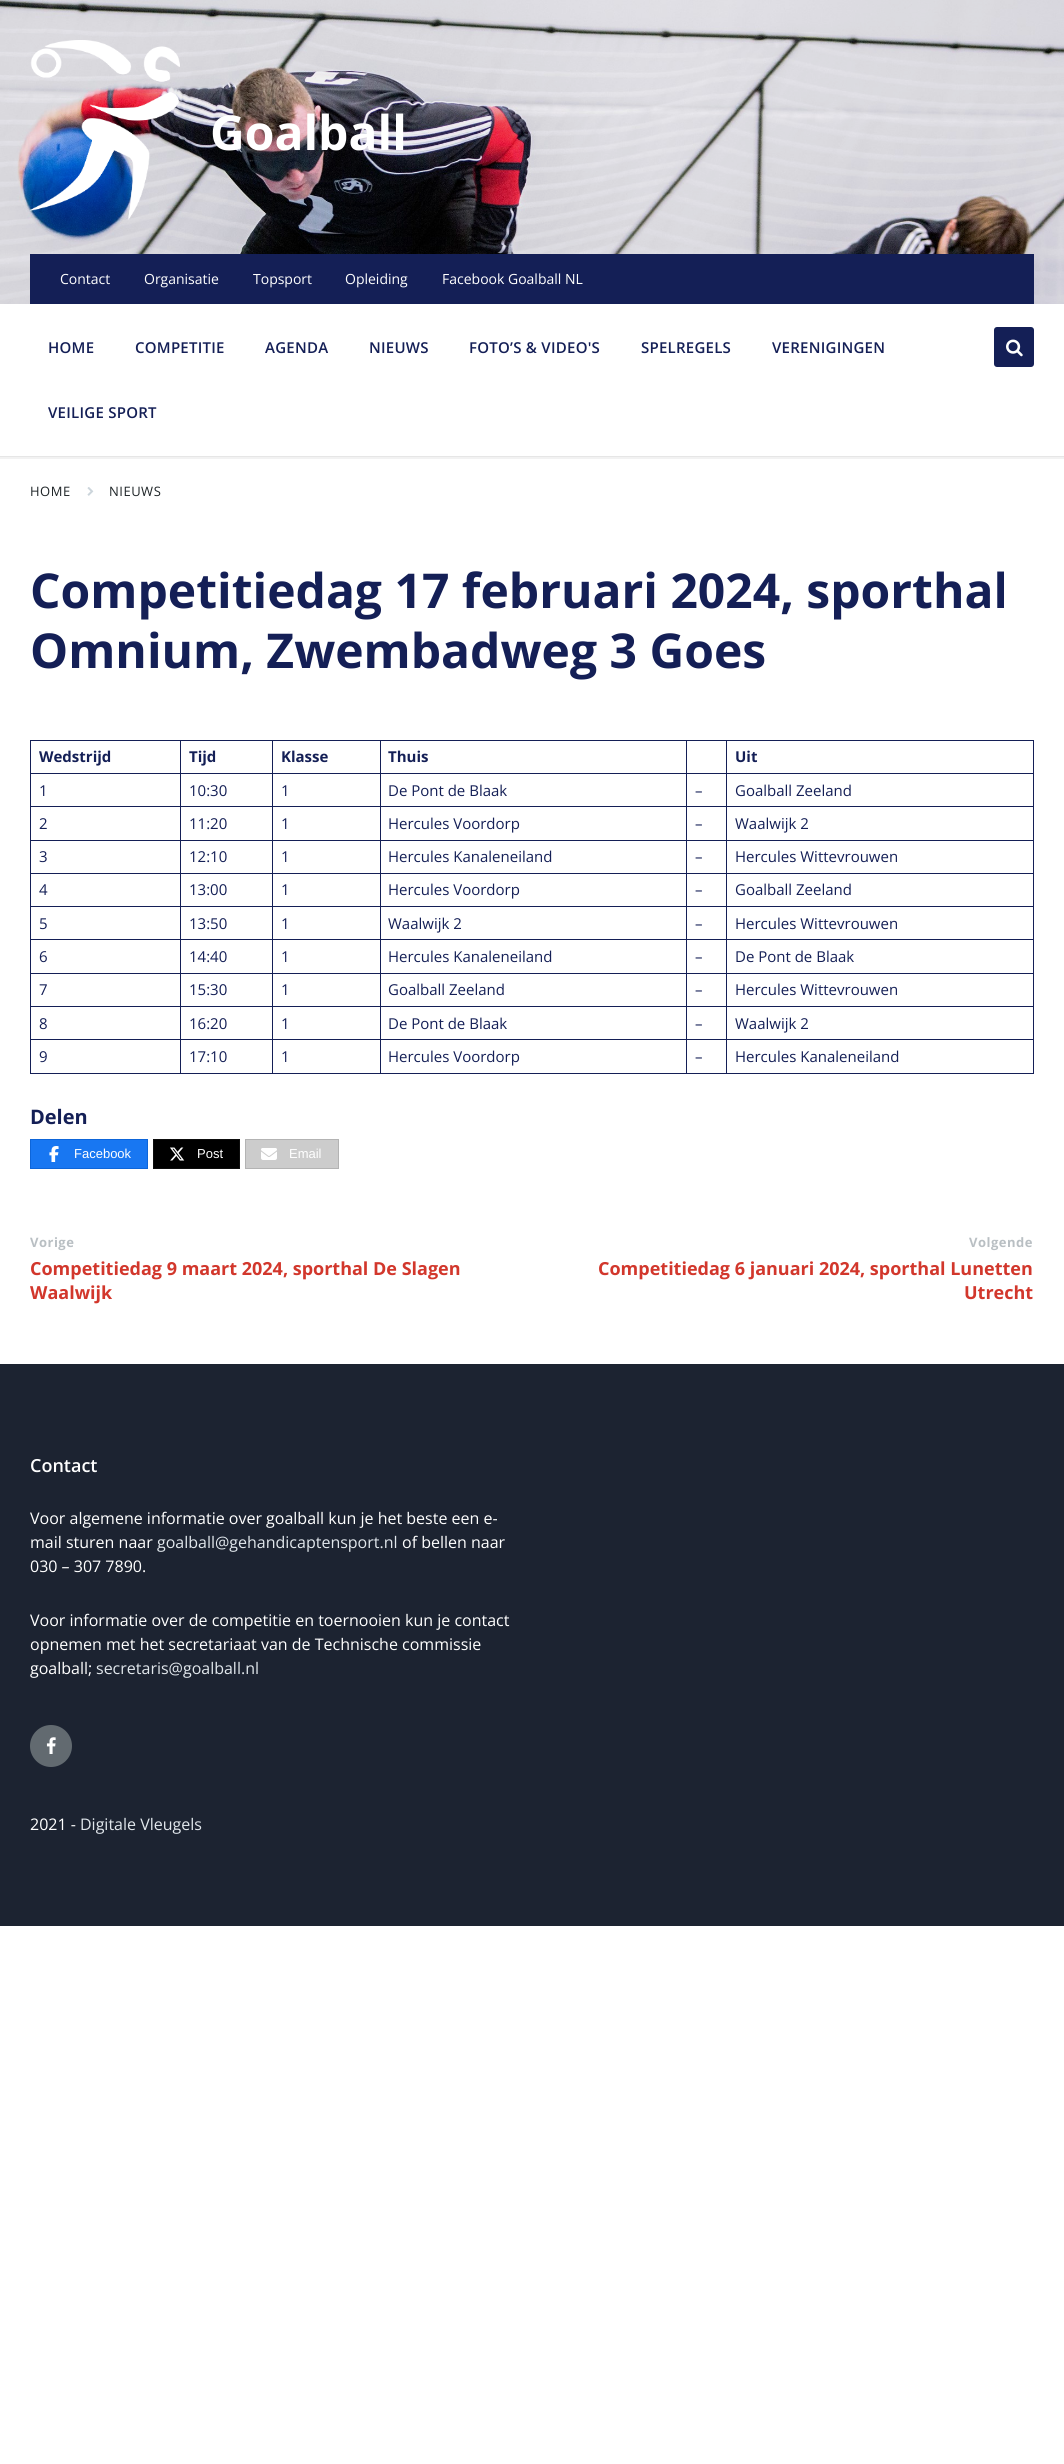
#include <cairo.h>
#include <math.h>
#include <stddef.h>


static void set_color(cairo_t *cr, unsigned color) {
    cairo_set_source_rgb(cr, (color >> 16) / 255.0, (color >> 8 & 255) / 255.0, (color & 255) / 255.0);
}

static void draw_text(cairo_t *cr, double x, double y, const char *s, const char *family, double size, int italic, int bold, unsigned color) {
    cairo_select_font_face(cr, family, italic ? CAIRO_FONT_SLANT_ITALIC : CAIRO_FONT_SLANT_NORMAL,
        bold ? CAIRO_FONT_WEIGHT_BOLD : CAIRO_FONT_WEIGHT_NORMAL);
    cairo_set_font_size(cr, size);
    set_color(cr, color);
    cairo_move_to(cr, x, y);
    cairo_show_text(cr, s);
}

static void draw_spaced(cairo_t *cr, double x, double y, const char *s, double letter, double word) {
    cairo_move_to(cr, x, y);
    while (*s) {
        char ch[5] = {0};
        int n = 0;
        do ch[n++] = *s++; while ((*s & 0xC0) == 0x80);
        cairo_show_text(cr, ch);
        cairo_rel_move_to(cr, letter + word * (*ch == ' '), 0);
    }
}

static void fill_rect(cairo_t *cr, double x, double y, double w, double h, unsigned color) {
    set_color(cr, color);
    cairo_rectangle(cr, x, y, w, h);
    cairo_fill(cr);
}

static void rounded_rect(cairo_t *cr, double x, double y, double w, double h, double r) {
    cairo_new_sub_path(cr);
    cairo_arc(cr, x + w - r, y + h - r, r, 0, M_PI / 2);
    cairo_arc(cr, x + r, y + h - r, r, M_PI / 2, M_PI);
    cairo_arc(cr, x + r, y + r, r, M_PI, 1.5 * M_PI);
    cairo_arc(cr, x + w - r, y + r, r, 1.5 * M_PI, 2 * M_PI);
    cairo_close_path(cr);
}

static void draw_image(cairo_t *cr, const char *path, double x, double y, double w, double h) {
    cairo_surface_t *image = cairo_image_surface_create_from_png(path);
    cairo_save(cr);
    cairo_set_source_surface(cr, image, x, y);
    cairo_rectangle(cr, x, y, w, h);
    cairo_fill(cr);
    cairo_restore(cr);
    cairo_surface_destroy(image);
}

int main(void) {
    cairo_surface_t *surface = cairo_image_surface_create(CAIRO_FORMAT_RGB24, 1064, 2464);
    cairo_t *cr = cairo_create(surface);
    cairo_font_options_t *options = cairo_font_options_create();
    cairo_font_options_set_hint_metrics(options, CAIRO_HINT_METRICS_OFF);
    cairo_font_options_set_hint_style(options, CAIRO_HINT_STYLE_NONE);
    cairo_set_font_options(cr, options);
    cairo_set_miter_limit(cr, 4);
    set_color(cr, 0xFFFFFF);
    cairo_paint(cr);
    cairo_rectangle(cr, -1, 303, 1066, 155);
    set_color(cr, 0xF2F2F2);
    cairo_stroke(cr);
    draw_image(cr, "assets/img1.png", 0, 0, 1064, 304);
    draw_image(cr, "assets/img2.png", 30, 40, 150, 180);
    draw_text(cr, 210, 150, "Goalball", "Open Sans", 48, 0, 1, 0xFFFFFF);
    fill_rect(cr, 30, 254, 1004, 50, 0x141F56);
    draw_text(cr, 60, 284, "Contact", "Open Sans", 14, 0, 0, 0xFFFFFF);
    draw_text(cr, 144, 284, "Organisatie", "Open Sans", 14, 0, 0, 0xFFFFFF);
    draw_text(cr, 253, 284, "Topsport", "Open Sans", 14, 0, 0, 0xFFFFFF);
    draw_text(cr, 345, 284, "Opleiding", "Open Sans", 14, 0, 0, 0xFFFFFF);
    draw_text(cr, 442, 284, "Facebook Goalball NL", "Open Sans", 14, 0, 0, 0xFFFFFF);
    fill_rect(cr, 0, 456, 1064, 1, 0xE6E6E6);
    cairo_select_font_face(cr, "Open Sans SemiBold", CAIRO_FONT_SLANT_NORMAL, CAIRO_FONT_WEIGHT_NORMAL);
    cairo_set_font_size(cr, 15);
    set_color(cr, 0x141F56);
    draw_spaced(cr, 48, 353, "HOME", 0.25, 0);
    draw_spaced(cr, 135, 353, "COMPETITIE", 0.25, 0);
    draw_spaced(cr, 265, 353, "AGENDA", 0.25, 0);
    draw_spaced(cr, 369, 353, "NIEUWS", 0.25, 0);
    draw_spaced(cr, 469, 353, "FOTO’S & VIDEO'S", 0.25, 0);
    draw_spaced(cr, 641, 353, "SPELREGELS", 0.25, 0);
    draw_spaced(cr, 772, 353, "VERENIGINGEN", 0.25, 0);
    draw_spaced(cr, 48, 418, "VEILIGE SPORT", 0.25, 0);
    rounded_rect(cr, 994, 327, 40, 40, 3);
    cairo_fill(cr);
    draw_image(cr, "assets/img3.png", 1006, 339, 17, 18);
    cairo_select_font_face(cr, "Open Sans", CAIRO_FONT_SLANT_NORMAL, CAIRO_FONT_WEIGHT_NORMAL);
    cairo_set_font_size(cr, 13);
    set_color(cr, 0x1E2427);
    draw_spaced(cr, 30, 496, "HOME", 0.5, 0);
    draw_image(cr, "assets/img4.png", 87, 487, 7, 9);
    draw_spaced(cr, 109, 496, "NIEUWS", 0.5, 0);
    draw_text(cr, 30, 608, "Competitiedag 17 februari 2024, sporthal", "Open Sans", 48, 0, 1, 0x141F56);
    draw_text(cr, 30, 668, "Omnium, Zwembadweg 3 Goes", "Open Sans", 48, 0, 1, 0x141F56);
    fill_rect(cr, 726, 740, 308, 1, 0x141F56);
    fill_rect(cr, 726, 773, 308, 1, 0x141F56);
    fill_rect(cr, 726, 806, 308, 1, 0x141F56);
    fill_rect(cr, 726, 840, 308, 1, 0x141F56);
    fill_rect(cr, 726, 873, 308, 1, 0x141F56);
    fill_rect(cr, 726, 906, 308, 1, 0x141F56);
    fill_rect(cr, 726, 939, 308, 1, 0x141F56);
    fill_rect(cr, 726, 973, 308, 1, 0x141F56);
    fill_rect(cr, 726, 1006, 308, 1, 0x141F56);
    fill_rect(cr, 726, 1039, 308, 1, 0x141F56);
    fill_rect(cr, 1033, 1039, 1, 35, 0x141F56);
    fill_rect(cr, 726, 1073, 308, 1, 0x141F56);
    fill_rect(cr, 726, 1039, 1, 35, 0x141F56);
    fill_rect(cr, 686, 1039, 41, 1, 0x141F56);
    fill_rect(cr, 726, 1006, 1, 34, 0x141F56);
    fill_rect(cr, 686, 1006, 41, 1, 0x141F56);
    fill_rect(cr, 726, 973, 1, 34, 0x141F56);
    fill_rect(cr, 686, 973, 41, 1, 0x141F56);
    fill_rect(cr, 726, 939, 1, 35, 0x141F56);
    fill_rect(cr, 686, 939, 41, 1, 0x141F56);
    fill_rect(cr, 726, 906, 1, 34, 0x141F56);
    fill_rect(cr, 686, 906, 41, 1, 0x141F56);
    fill_rect(cr, 726, 873, 1, 34, 0x141F56);
    fill_rect(cr, 686, 873, 41, 1, 0x141F56);
    fill_rect(cr, 726, 840, 1, 34, 0x141F56);
    fill_rect(cr, 686, 840, 41, 1, 0x141F56);
    fill_rect(cr, 726, 806, 1, 35, 0x141F56);
    fill_rect(cr, 686, 806, 41, 1, 0x141F56);
    fill_rect(cr, 726, 773, 1, 34, 0x141F56);
    fill_rect(cr, 686, 773, 41, 1, 0x141F56);
    fill_rect(cr, 726, 740, 1, 34, 0x141F56);
    fill_rect(cr, 686, 740, 41, 1, 0x141F56);
    fill_rect(cr, 686, 1073, 41, 1, 0x141F56);
    fill_rect(cr, 686, 1039, 1, 35, 0x141F56);
    fill_rect(cr, 380, 1039, 307, 1, 0x141F56);
    fill_rect(cr, 686, 1006, 1, 34, 0x141F56);
    fill_rect(cr, 380, 1006, 307, 1, 0x141F56);
    fill_rect(cr, 686, 973, 1, 34, 0x141F56);
    fill_rect(cr, 380, 973, 307, 1, 0x141F56);
    fill_rect(cr, 686, 939, 1, 35, 0x141F56);
    fill_rect(cr, 380, 939, 307, 1, 0x141F56);
    fill_rect(cr, 686, 906, 1, 34, 0x141F56);
    fill_rect(cr, 380, 906, 307, 1, 0x141F56);
    fill_rect(cr, 686, 873, 1, 34, 0x141F56);
    fill_rect(cr, 380, 873, 307, 1, 0x141F56);
    fill_rect(cr, 686, 840, 1, 34, 0x141F56);
    fill_rect(cr, 380, 840, 307, 1, 0x141F56);
    fill_rect(cr, 686, 806, 1, 35, 0x141F56);
    fill_rect(cr, 380, 806, 307, 1, 0x141F56);
    fill_rect(cr, 686, 773, 1, 34, 0x141F56);
    fill_rect(cr, 380, 773, 307, 1, 0x141F56);
    fill_rect(cr, 686, 740, 1, 34, 0x141F56);
    fill_rect(cr, 380, 740, 307, 1, 0x141F56);
    fill_rect(cr, 380, 1073, 307, 1, 0x141F56);
    fill_rect(cr, 380, 1039, 1, 35, 0x141F56);
    fill_rect(cr, 272, 1039, 109, 1, 0x141F56);
    fill_rect(cr, 380, 1006, 1, 34, 0x141F56);
    fill_rect(cr, 272, 1006, 109, 1, 0x141F56);
    fill_rect(cr, 380, 973, 1, 34, 0x141F56);
    fill_rect(cr, 272, 973, 109, 1, 0x141F56);
    fill_rect(cr, 380, 939, 1, 35, 0x141F56);
    fill_rect(cr, 272, 939, 109, 1, 0x141F56);
    fill_rect(cr, 380, 906, 1, 34, 0x141F56);
    fill_rect(cr, 272, 906, 109, 1, 0x141F56);
    fill_rect(cr, 380, 873, 1, 34, 0x141F56);
    fill_rect(cr, 272, 873, 109, 1, 0x141F56);
    fill_rect(cr, 380, 840, 1, 34, 0x141F56);
    fill_rect(cr, 272, 840, 109, 1, 0x141F56);
    fill_rect(cr, 380, 806, 1, 35, 0x141F56);
    fill_rect(cr, 272, 806, 109, 1, 0x141F56);
    fill_rect(cr, 380, 773, 1, 34, 0x141F56);
    fill_rect(cr, 272, 773, 109, 1, 0x141F56);
    fill_rect(cr, 380, 740, 1, 34, 0x141F56);
    fill_rect(cr, 272, 740, 109, 1, 0x141F56);
    fill_rect(cr, 272, 1073, 109, 1, 0x141F56);
    fill_rect(cr, 272, 1039, 1, 35, 0x141F56);
    fill_rect(cr, 180, 1039, 93, 1, 0x141F56);
    fill_rect(cr, 272, 1006, 1, 34, 0x141F56);
    fill_rect(cr, 180, 1006, 93, 1, 0x141F56);
    fill_rect(cr, 272, 973, 1, 34, 0x141F56);
    fill_rect(cr, 180, 973, 93, 1, 0x141F56);
    fill_rect(cr, 272, 939, 1, 35, 0x141F56);
    fill_rect(cr, 180, 939, 93, 1, 0x141F56);
    fill_rect(cr, 272, 906, 1, 34, 0x141F56);
    fill_rect(cr, 180, 906, 93, 1, 0x141F56);
    fill_rect(cr, 272, 873, 1, 34, 0x141F56);
    fill_rect(cr, 180, 873, 93, 1, 0x141F56);
    fill_rect(cr, 272, 840, 1, 34, 0x141F56);
    fill_rect(cr, 180, 840, 93, 1, 0x141F56);
    fill_rect(cr, 272, 806, 1, 35, 0x141F56);
    fill_rect(cr, 180, 806, 93, 1, 0x141F56);
    fill_rect(cr, 272, 773, 1, 34, 0x141F56);
    fill_rect(cr, 180, 773, 93, 1, 0x141F56);
    fill_rect(cr, 272, 740, 1, 34, 0x141F56);
    fill_rect(cr, 180, 740, 93, 1, 0x141F56);
    fill_rect(cr, 180, 1073, 93, 1, 0x141F56);
    fill_rect(cr, 180, 1039, 1, 35, 0x141F56);
    fill_rect(cr, 30, 1039, 151, 1, 0x141F56);
    fill_rect(cr, 180, 1006, 1, 34, 0x141F56);
    fill_rect(cr, 30, 1006, 151, 1, 0x141F56);
    fill_rect(cr, 180, 973, 1, 34, 0x141F56);
    fill_rect(cr, 30, 973, 151, 1, 0x141F56);
    fill_rect(cr, 180, 939, 1, 35, 0x141F56);
    fill_rect(cr, 30, 939, 151, 1, 0x141F56);
    fill_rect(cr, 180, 906, 1, 34, 0x141F56);
    fill_rect(cr, 30, 906, 151, 1, 0x141F56);
    fill_rect(cr, 180, 873, 1, 34, 0x141F56);
    fill_rect(cr, 30, 873, 151, 1, 0x141F56);
    fill_rect(cr, 180, 840, 1, 34, 0x141F56);
    fill_rect(cr, 30, 840, 151, 1, 0x141F56);
    fill_rect(cr, 180, 806, 1, 35, 0x141F56);
    fill_rect(cr, 30, 806, 151, 1, 0x141F56);
    fill_rect(cr, 180, 773, 1, 34, 0x141F56);
    fill_rect(cr, 30, 773, 151, 1, 0x141F56);
    fill_rect(cr, 180, 740, 1, 34, 0x141F56);
    fill_rect(cr, 30, 740, 151, 1, 0x141F56);
    fill_rect(cr, 30, 1073, 151, 1, 0x141F56);
    fill_rect(cr, 30, 1039, 1, 35, 0x141F56);
    fill_rect(cr, 30, 1006, 1, 34, 0x141F56);
    fill_rect(cr, 30, 973, 1, 34, 0x141F56);
    fill_rect(cr, 30, 939, 1, 35, 0x141F56);
    fill_rect(cr, 30, 906, 1, 34, 0x141F56);
    fill_rect(cr, 30, 873, 1, 34, 0x141F56);
    fill_rect(cr, 30, 840, 1, 34, 0x141F56);
    fill_rect(cr, 30, 806, 1, 35, 0x141F56);
    fill_rect(cr, 30, 773, 1, 34, 0x141F56);
    fill_rect(cr, 30, 740, 1, 34, 0x141F56);
    draw_text(cr, 39, 762, "Wedstrijd", "Open Sans", 15, 0, 1, 0x141F56);
    draw_text(cr, 189, 762, "Tijd", "Open Sans", 15, 0, 1, 0x141F56);
    draw_text(cr, 281, 762, "Klasse", "Open Sans", 15, 0, 1, 0x141F56);
    draw_text(cr, 388, 762, "Thuis", "Open Sans", 15, 0, 1, 0x141F56);
    fill_rect(cr, 1033, 1006, 1, 34, 0x141F56);
    fill_rect(cr, 1033, 973, 1, 34, 0x141F56);
    fill_rect(cr, 1033, 939, 1, 35, 0x141F56);
    fill_rect(cr, 1033, 906, 1, 34, 0x141F56);
    fill_rect(cr, 1033, 873, 1, 34, 0x141F56);
    fill_rect(cr, 1033, 840, 1, 34, 0x141F56);
    fill_rect(cr, 1033, 806, 1, 35, 0x141F56);
    fill_rect(cr, 1033, 773, 1, 34, 0x141F56);
    fill_rect(cr, 1033, 740, 1, 34, 0x141F56);
    draw_text(cr, 735, 762, "Uit", "Open Sans", 15, 0, 1, 0x141F56);
    draw_text(cr, 39, 796, "1", "Open Sans", 15, 0, 0, 0x141F56);
    draw_text(cr, 189, 796, "10:30", "Open Sans", 15, 0, 0, 0x141F56);
    draw_text(cr, 281, 796, "1", "Open Sans", 15, 0, 0, 0x141F56);
    draw_text(cr, 388, 796, "De Pont de Blaak", "Open Sans", 15, 0, 0, 0x141F56);
    draw_text(cr, 695, 796, "–", "Open Sans", 15, 0, 0, 0x141F56);
    draw_text(cr, 735, 796, "Goalball Zeeland", "Open Sans", 15, 0, 0, 0x141F56);
    draw_text(cr, 39, 829, "2", "Open Sans", 15, 0, 0, 0x141F56);
    draw_text(cr, 189, 829, "11:20", "Open Sans", 15, 0, 0, 0x141F56);
    draw_text(cr, 281, 829, "1", "Open Sans", 15, 0, 0, 0x141F56);
    draw_text(cr, 388, 829, "Hercules Voordorp", "Open Sans", 15, 0, 0, 0x141F56);
    draw_text(cr, 695, 829, "–", "Open Sans", 15, 0, 0, 0x141F56);
    draw_text(cr, 735, 829, "Waalwijk 2", "Open Sans", 15, 0, 0, 0x141F56);
    draw_text(cr, 39, 862, "3", "Open Sans", 15, 0, 0, 0x141F56);
    draw_text(cr, 189, 862, "12:10", "Open Sans", 15, 0, 0, 0x141F56);
    draw_text(cr, 281, 862, "1", "Open Sans", 15, 0, 0, 0x141F56);
    draw_text(cr, 388, 862, "Hercules Kanaleneiland", "Open Sans", 15, 0, 0, 0x141F56);
    draw_text(cr, 695, 862, "–", "Open Sans", 15, 0, 0, 0x141F56);
    draw_text(cr, 735, 862, "Hercules Wittevrouwen", "Open Sans", 15, 0, 0, 0x141F56);
    draw_text(cr, 39, 895, "4", "Open Sans", 15, 0, 0, 0x141F56);
    draw_text(cr, 189, 895, "13:00", "Open Sans", 15, 0, 0, 0x141F56);
    draw_text(cr, 281, 895, "1", "Open Sans", 15, 0, 0, 0x141F56);
    draw_text(cr, 388, 895, "Hercules Voordorp", "Open Sans", 15, 0, 0, 0x141F56);
    draw_text(cr, 695, 895, "–", "Open Sans", 15, 0, 0, 0x141F56);
    draw_text(cr, 735, 895, "Goalball Zeeland", "Open Sans", 15, 0, 0, 0x141F56);
    draw_text(cr, 39, 929, "5", "Open Sans", 15, 0, 0, 0x141F56);
    draw_text(cr, 189, 929, "13:50", "Open Sans", 15, 0, 0, 0x141F56);
    draw_text(cr, 281, 929, "1", "Open Sans", 15, 0, 0, 0x141F56);
    draw_text(cr, 388, 929, "Waalwijk 2", "Open Sans", 15, 0, 0, 0x141F56);
    draw_text(cr, 695, 929, "–", "Open Sans", 15, 0, 0, 0x141F56);
    draw_text(cr, 735, 929, "Hercules Wittevrouwen", "Open Sans", 15, 0, 0, 0x141F56);
    draw_text(cr, 39, 962, "6", "Open Sans", 15, 0, 0, 0x141F56);
    draw_text(cr, 189, 962, "14:40", "Open Sans", 15, 0, 0, 0x141F56);
    draw_text(cr, 281, 962, "1", "Open Sans", 15, 0, 0, 0x141F56);
    draw_text(cr, 388, 962, "Hercules Kanaleneiland", "Open Sans", 15, 0, 0, 0x141F56);
    draw_text(cr, 695, 962, "–", "Open Sans", 15, 0, 0, 0x141F56);
    draw_text(cr, 735, 962, "De Pont de Blaak", "Open Sans", 15, 0, 0, 0x141F56);
    draw_text(cr, 39, 995, "7", "Open Sans", 15, 0, 0, 0x141F56);
    draw_text(cr, 189, 995, "15:30", "Open Sans", 15, 0, 0, 0x141F56);
    draw_text(cr, 281, 995, "1", "Open Sans", 15, 0, 0, 0x141F56);
    draw_text(cr, 388, 995, "Goalball Zeeland", "Open Sans", 15, 0, 0, 0x141F56);
    draw_text(cr, 695, 995, "–", "Open Sans", 15, 0, 0, 0x141F56);
    draw_text(cr, 735, 995, "Hercules Wittevrouwen", "Open Sans", 15, 0, 0, 0x141F56);
    draw_text(cr, 39, 1029, "8", "Open Sans", 15, 0, 0, 0x141F56);
    draw_text(cr, 189, 1029, "16:20", "Open Sans", 15, 0, 0, 0x141F56);
    draw_text(cr, 281, 1029, "1", "Open Sans", 15, 0, 0, 0x141F56);
    draw_text(cr, 388, 1029, "De Pont de Blaak", "Open Sans", 15, 0, 0, 0x141F56);
    draw_text(cr, 695, 1029, "–", "Open Sans", 15, 0, 0, 0x141F56);
    draw_text(cr, 735, 1029, "Waalwijk 2", "Open Sans", 15, 0, 0, 0x141F56);
    draw_text(cr, 39, 1062, "9", "Open Sans", 15, 0, 0, 0x141F56);
    draw_text(cr, 189, 1062, "17:10", "Open Sans", 15, 0, 0, 0x141F56);
    draw_text(cr, 281, 1062, "1", "Open Sans", 15, 0, 0, 0x141F56);
    draw_text(cr, 388, 1062, "Hercules Voordorp", "Open Sans", 15, 0, 0, 0x141F56);
    draw_text(cr, 695, 1062, "–", "Open Sans", 15, 0, 0, 0x141F56);
    draw_text(cr, 735, 1062, "Hercules Kanaleneiland", "Open Sans", 15, 0, 0, 0x141F56);
    draw_text(cr, 30, 1124, "Delen", "Open Sans", 20, 0, 1, 0x141F56);
    set_color(cr, 0x1877F2);
    cairo_rectangle(cr, 30.5, 1139.5, 117, 29);
    cairo_fill_preserve(cr);
    set_color(cr, 0x0D65D9);
    cairo_set_line_width(cr, 1);
    cairo_stroke(cr);
    draw_image(cr, "assets/img5.png", 49, 1146, 10, 16);
    draw_text(cr, 74, 1158, "Facebook", "Liberation Sans", 13, 0, 0, 0xFFFFFF);
    set_color(cr, 0x000000);
    cairo_rectangle(cr, 153.5, 1139.5, 86, 29);
    cairo_fill_preserve(cr);
    set_color(cr, 0x0D0D0D);
    cairo_stroke(cr);
    draw_image(cr, "assets/img6.png", 170, 1147, 15, 14);
    draw_text(cr, 197, 1158, "Post", "Liberation Sans", 13, 0, 0, 0xFFFFFF);
    set_color(cr, 0xCCCCCC);
    cairo_rectangle(cr, 245.5, 1139.5, 93, 29);
    cairo_fill_preserve(cr);
    set_color(cr, 0xB3B3B3);
    cairo_stroke(cr);
    draw_image(cr, "assets/img7.png", 261, 1148, 16, 12);
    draw_text(cr, 289, 1158, "Email", "Liberation Sans", 13, 0, 0, 0xFFFFFF);
    cairo_select_font_face(cr, "Open Sans", CAIRO_FONT_SLANT_NORMAL, CAIRO_FONT_WEIGHT_BOLD);
    set_color(cr, 0xB9BFC3);
    draw_spaced(cr, 30, 1247, "Vorige", 0.5, 0);
    draw_text(cr, 30, 1275, "Competitiedag 9 maart 2024, sporthal De Slagen", "Open Sans", 18, 0, 1, 0xD2372C);
    draw_text(cr, 30, 1299, "Waalwijk", "Open Sans", 18, 0, 1, 0xD2372C);
    cairo_set_font_size(cr, 13);
    set_color(cr, 0xB9BFC3);
    draw_spaced(cr, 969, 1247, "Volgende", 0.5, 0);
    draw_text(cr, 598, 1275, "Competitiedag 6 januari 2024, sporthal Lunetten", "Open Sans", 18, 0, 1, 0xD2372C);
    draw_text(cr, 964, 1299, "Utrecht", "Open Sans", 18, 0, 1, 0xD2372C);
    fill_rect(cr, 0, 1364, 1064, 562, 0x1C2331);
    draw_text(cr, 30, 1472, "Contact", "Open Sans SemiBold", 18, 0, 0, 0xFFFFFF);
    draw_text(cr, 30, 1524, "Voor algemene informatie over goalball kun je het beste een e-", "Open Sans", 16, 0, 0, 0xFFFFFF);
    draw_text(cr, 30, 1548, "mail sturen naar", "Open Sans", 16, 0, 0, 0xFFFFFF);
    draw_text(cr, 157, 1548, "goalball@gehandicaptensport.nl", "Open Sans", 16, 0, 0, 0xE1E7EC);
    draw_text(cr, 402, 1548, "of bellen naar", "Open Sans", 16, 0, 0, 0xFFFFFF);
    draw_text(cr, 30, 1572, "030 – 307 7890.", "Open Sans", 16, 0, 0, 0xFFFFFF);
    draw_text(cr, 30, 1626, "Voor informatie over de competitie en toernooien kun je contact", "Open Sans", 16, 0, 0, 0xFFFFFF);
    draw_text(cr, 30, 1650, "opnemen met het secretariaat van de Technische commissie", "Open Sans", 16, 0, 0, 0xFFFFFF);
    draw_text(cr, 30, 1674, "goalball;", "Open Sans", 16, 0, 0, 0xFFFFFF);
    draw_text(cr, 96, 1674, "secretaris@goalball.nl", "Open Sans", 16, 0, 0, 0xE1E7EC);
    set_color(cr, 0x626A70);
    cairo_new_path(cr);
    cairo_arc(cr, 51, 1746, 21, 0, 2 * M_PI);
    cairo_fill(cr);
    draw_image(cr, "assets/img8.png", 46, 1737, 10, 17);
    draw_text(cr, 30, 1830, "2021 -", "Open Sans", 16, 0, 0, 0xFFFFFF);
    draw_text(cr, 80, 1830, "Digitale Vleugels", "Open Sans", 16, 0, 0, 0xE1E7EC);
    cairo_surface_write_to_png(surface, "output.png");
    cairo_font_options_destroy(options);
    cairo_destroy(cr);
    cairo_surface_destroy(surface);
    return 0;
}
